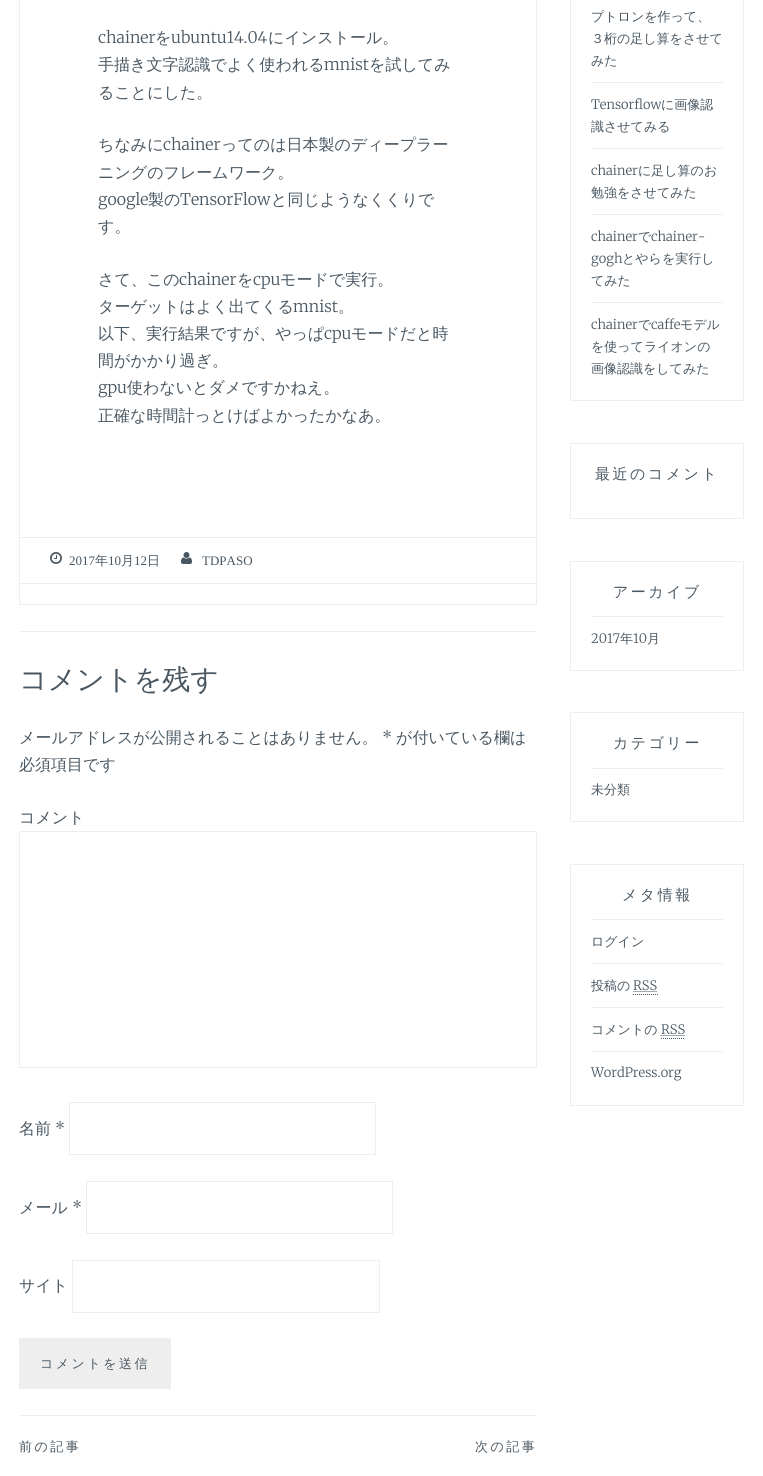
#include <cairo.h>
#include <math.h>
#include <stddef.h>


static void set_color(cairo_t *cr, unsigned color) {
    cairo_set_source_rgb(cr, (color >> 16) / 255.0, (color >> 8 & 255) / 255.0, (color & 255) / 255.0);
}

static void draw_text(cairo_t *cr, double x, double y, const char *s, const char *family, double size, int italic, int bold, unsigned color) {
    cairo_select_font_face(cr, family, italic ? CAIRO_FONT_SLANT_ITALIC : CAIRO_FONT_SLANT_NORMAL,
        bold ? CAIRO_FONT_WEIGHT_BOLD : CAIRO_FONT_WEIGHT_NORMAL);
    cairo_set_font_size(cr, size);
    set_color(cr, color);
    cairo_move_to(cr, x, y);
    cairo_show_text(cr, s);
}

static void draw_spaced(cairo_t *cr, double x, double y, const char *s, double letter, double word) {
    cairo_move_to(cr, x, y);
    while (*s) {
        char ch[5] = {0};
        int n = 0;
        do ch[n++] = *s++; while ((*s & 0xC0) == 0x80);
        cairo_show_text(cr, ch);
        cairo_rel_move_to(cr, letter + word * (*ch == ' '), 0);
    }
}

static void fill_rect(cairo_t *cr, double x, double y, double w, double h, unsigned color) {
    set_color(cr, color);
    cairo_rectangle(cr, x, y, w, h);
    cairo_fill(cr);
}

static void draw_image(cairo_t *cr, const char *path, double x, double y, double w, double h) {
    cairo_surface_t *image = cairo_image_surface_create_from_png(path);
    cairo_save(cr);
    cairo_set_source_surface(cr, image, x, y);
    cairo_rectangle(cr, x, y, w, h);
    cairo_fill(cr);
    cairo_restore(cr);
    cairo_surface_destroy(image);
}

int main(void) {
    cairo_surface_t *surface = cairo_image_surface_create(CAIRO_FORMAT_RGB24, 763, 1476);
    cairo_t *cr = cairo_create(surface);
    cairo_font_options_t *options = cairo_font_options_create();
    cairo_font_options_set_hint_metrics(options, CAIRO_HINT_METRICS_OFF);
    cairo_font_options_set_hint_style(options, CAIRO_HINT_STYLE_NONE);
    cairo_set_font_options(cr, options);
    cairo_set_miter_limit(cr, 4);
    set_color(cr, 0xFFFFFF);
    cairo_paint(cr);
    cairo_rectangle(cr, 19.5, -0.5, 517, 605);
    set_color(cr, 0xEEEEEE);
    cairo_set_line_width(cr, 1);
    cairo_stroke(cr);
    draw_text(cr, 98, 43, "chainer", "Merriweather Light", 16, 0, 0, 0x495762);
    draw_text(cr, 155, 43, "を", "WenQuanYi Zen Hei Medium", 16, 0, 0, 0x495762);
    draw_text(cr, 171, 43, "ubuntu14.04", "Merriweather Light", 16, 0, 0, 0x495762);
    draw_text(cr, 268, 43, "にインストール。", "WenQuanYi Zen Hei Medium", 16, 0, 0, 0x495762);
    draw_text(cr, 98, 70, "手描き文字認識でよく使われる", "WenQuanYi Zen Hei Medium", 16, 0, 0, 0x495762);
    draw_text(cr, 324, 70, "mnist", "Merriweather Light", 16, 0, 0, 0x495762);
    draw_text(cr, 369, 70, "を試してみ", "WenQuanYi Zen Hei Medium", 16, 0, 0, 0x495762);
    draw_text(cr, 98, 98, "ることにした。", "WenQuanYi Zen Hei Medium", 16, 0, 0, 0x495762);
    draw_text(cr, 98, 150, "ちなみに", "WenQuanYi Zen Hei Medium", 16, 0, 0, 0x495762);
    draw_text(cr, 163, 150, "chainer", "Merriweather Light", 16, 0, 0, 0x495762);
    draw_text(cr, 221, 150, "ってのは日本製のディープラー", "WenQuanYi Zen Hei Medium", 16, 0, 0, 0x495762);
    draw_text(cr, 98, 178, "ニングのフレームワーク。", "WenQuanYi Zen Hei Medium", 16, 0, 0, 0x495762);
    draw_text(cr, 98, 205, "google", "Merriweather Light", 16, 0, 0, 0x495762);
    draw_text(cr, 148, 205, "製の", "WenQuanYi Zen Hei Medium", 16, 0, 0, 0x495762);
    draw_text(cr, 180, 205, "TensorFlow", "Merriweather Light", 16, 0, 0, 0x495762);
    draw_text(cr, 271, 205, "と同じようなくくりで", "WenQuanYi Zen Hei Medium", 16, 0, 0, 0x495762);
    draw_text(cr, 98, 232, "す。", "WenQuanYi Zen Hei Medium", 16, 0, 0, 0x495762);
    draw_text(cr, 98, 285, "さて、この", "WenQuanYi Zen Hei Medium", 16, 0, 0, 0x495762);
    draw_text(cr, 179, 285, "chainer", "Merriweather Light", 16, 0, 0, 0x495762);
    draw_text(cr, 237, 285, "を", "WenQuanYi Zen Hei Medium", 16, 0, 0, 0x495762);
    draw_text(cr, 253, 285, "cpu", "Merriweather Light", 16, 0, 0, 0x495762);
    draw_text(cr, 280, 285, "モードで実行。", "WenQuanYi Zen Hei Medium", 16, 0, 0, 0x495762);
    draw_text(cr, 98, 312, "ターゲットはよく出てくる", "WenQuanYi Zen Hei Medium", 16, 0, 0, 0x495762);
    draw_text(cr, 293, 312, "mnist", "Merriweather Light", 16, 0, 0, 0x495762);
    draw_text(cr, 338, 312, "。", "WenQuanYi Zen Hei Medium", 16, 0, 0, 0x495762);
    draw_text(cr, 98, 339, "以下、実行結果ですが、やっぱ", "WenQuanYi Zen Hei Medium", 16, 0, 0, 0x495762);
    draw_text(cr, 324, 339, "cpu", "Merriweather Light", 16, 0, 0, 0x495762);
    draw_text(cr, 351, 339, "モードだと時", "WenQuanYi Zen Hei Medium", 16, 0, 0, 0x495762);
    draw_text(cr, 98, 366, "間がかかり過ぎ。", "WenQuanYi Zen Hei Medium", 16, 0, 0, 0x495762);
    draw_text(cr, 98, 393, "gpu", "Merriweather Light", 16, 0, 0, 0x495762);
    draw_text(cr, 127, 393, "使わないとダメですかねえ。", "WenQuanYi Zen Hei Medium", 16, 0, 0, 0x495762);
    draw_text(cr, 98, 421, "正確な時間計っとけばよかったかなあ。", "WenQuanYi Zen Hei Medium", 16, 0, 0, 0x495762);
    fill_rect(cr, 20, 537, 516, 1, 0xEEEEEE);
    fill_rect(cr, 20, 583, 516, 1, 0xEEEEEE);
    draw_image(cr, "assets/img1.png", 50, 552, 12, 12);
    draw_text(cr, 69, 565, "2017", "Liberation Serif", 13, 0, 0, 0x495762);
    draw_text(cr, 95, 565, "年", "WenQuanYi Zen Hei Medium", 13, 0, 0, 0x495762);
    draw_text(cr, 108, 565, "10", "Liberation Serif", 13, 0, 0, 0x495762);
    draw_text(cr, 121, 565, "月", "WenQuanYi Zen Hei Medium", 13, 0, 0, 0x495762);
    draw_text(cr, 134, 565, "12", "Liberation Serif", 13, 0, 0, 0x495762);
    draw_text(cr, 147, 565, "日", "WenQuanYi Zen Hei Medium", 13, 0, 0, 0x495762);
    draw_image(cr, "assets/img2.png", 181, 552, 11, 12);
    draw_text(cr, 202, 565, "TDPASO", "Liberation Serif", 13, 0, 0, 0x495762);
    fill_rect(cr, 19, 631, 518, 1, 0xEEEEEE);
    draw_text(cr, 19, 689, "コメントを残す", "WenQuanYi Zen Hei Medium", 28, 0, 0, 0x495762);
    draw_text(cr, 19, 743, "メールアドレスが公開されることはありません。", "WenQuanYi Zen Hei Medium", 16, 0, 0, 0x495762);
    draw_text(cr, 382, 743, "*", "Merriweather Light", 16, 0, 0, 0x495762);
    draw_text(cr, 396, 743, "が付いている欄は", "WenQuanYi Zen Hei Medium", 16, 0, 0, 0x495762);
    draw_text(cr, 19, 770, "必須項目です", "WenQuanYi Zen Hei Medium", 16, 0, 0, 0x495762);
    draw_text(cr, 19, 823, "コメント", "WenQuanYi Zen Hei Medium", 16, 0, 0, 0x495762);
    cairo_rectangle(cr, 19.5, 831.5, 517, 236);
    set_color(cr, 0xEEEEEE);
    cairo_stroke(cr);
    draw_text(cr, 19, 1134, "名前", "WenQuanYi Zen Hei Medium", 16, 0, 0, 0x495762);
    draw_text(cr, 55, 1134, "*", "Merriweather Light", 16, 0, 0, 0x495762);
    cairo_rectangle(cr, 69.5, 1102.5, 306, 52);
    set_color(cr, 0xEEEEEE);
    cairo_stroke(cr);
    draw_text(cr, 19, 1213, "メール", "WenQuanYi Zen Hei Medium", 16, 0, 0, 0x495762);
    draw_text(cr, 72, 1213, "*", "Merriweather Light", 16, 0, 0, 0x495762);
    cairo_rectangle(cr, 86.5, 1181.5, 306, 52);
    set_color(cr, 0xEEEEEE);
    cairo_stroke(cr);
    draw_text(cr, 19, 1291, "サイト", "WenQuanYi Zen Hei Medium", 16, 0, 0, 0x495762);
    cairo_rectangle(cr, 72.5, 1260.5, 307, 52);
    set_color(cr, 0xEEEEEE);
    cairo_stroke(cr);
    fill_rect(cr, 19, 1338, 152, 51, 0xEEEEEE);
    cairo_set_font_size(cr, 13);
    set_color(cr, 0x495762);
    draw_spaced(cr, 40, 1368, "コメントを送信", 2.5, 0);
    fill_rect(cr, 19, 1415, 518, 1, 0xEEEEEE);
    set_color(cr, 0x495762);
    draw_spaced(cr, 19, 1451, "前の記事", 2.5, 0);
    draw_spaced(cr, 475, 1451, "次の記事", 2.5, 0);
    cairo_rectangle(cr, 570.5, -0.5, 173, 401);
    set_color(cr, 0xEEEEEE);
    cairo_stroke(cr);
    draw_text(cr, 591, 21, "プトロンを作って、", "WenQuanYi Zen Hei Medium", 13, 0, 0, 0x495762);
    draw_text(cr, 591, 43, "３桁の足し算をさせて", "WenQuanYi Zen Hei Medium", 13, 0, 0, 0x495762);
    draw_text(cr, 591, 65, "みた", "WenQuanYi Zen Hei Medium", 13, 0, 0, 0x495762);
    fill_rect(cr, 591, 82, 132, 1, 0xEEEEEE);
    draw_text(cr, 591, 109, "Tensorflow", "Merriweather Light", 13, 0, 0, 0x495762);
    draw_text(cr, 661, 109, "に画像認", "WenQuanYi Zen Hei Medium", 13, 0, 0, 0x495762);
    draw_text(cr, 591, 131, "識させてみる", "WenQuanYi Zen Hei Medium", 13, 0, 0, 0x495762);
    fill_rect(cr, 591, 148, 132, 1, 0xEEEEEE);
    draw_text(cr, 591, 175, "chainer", "Merriweather Light", 13, 0, 0, 0x495762);
    draw_text(cr, 638, 175, "に足し算のお", "WenQuanYi Zen Hei Medium", 13, 0, 0, 0x495762);
    draw_text(cr, 591, 197, "勉強をさせてみた", "WenQuanYi Zen Hei Medium", 13, 0, 0, 0x495762);
    fill_rect(cr, 591, 214, 132, 1, 0xEEEEEE);
    draw_text(cr, 591, 241, "chainer", "Merriweather Light", 13, 0, 0, 0x495762);
    draw_text(cr, 638, 241, "で", "WenQuanYi Zen Hei Medium", 13, 0, 0, 0x495762);
    draw_text(cr, 651, 241, "chainer-", "Merriweather Light", 13, 0, 0, 0x495762);
    draw_text(cr, 591, 263, "gogh", "Merriweather Light", 13, 0, 0, 0x495762);
    draw_text(cr, 622, 263, "とやらを実行し", "WenQuanYi Zen Hei Medium", 13, 0, 0, 0x495762);
    draw_text(cr, 591, 285, "てみた", "WenQuanYi Zen Hei Medium", 13, 0, 0, 0x495762);
    fill_rect(cr, 591, 302, 132, 1, 0xEEEEEE);
    draw_text(cr, 591, 329, "chainer", "Merriweather Light", 13, 0, 0, 0x495762);
    draw_text(cr, 638, 329, "で", "WenQuanYi Zen Hei Medium", 13, 0, 0, 0x495762);
    draw_text(cr, 651, 329, "caffe", "Merriweather Light", 13, 0, 0, 0x495762);
    draw_text(cr, 680, 329, "モデル", "WenQuanYi Zen Hei Medium", 13, 0, 0, 0x495762);
    draw_text(cr, 591, 351, "を使ってライオンの", "WenQuanYi Zen Hei Medium", 13, 0, 0, 0x495762);
    draw_text(cr, 591, 373, "画像認識をしてみた", "WenQuanYi Zen Hei Medium", 13, 0, 0, 0x495762);
    cairo_rectangle(cr, 570.5, 443.5, 173, 75);
    set_color(cr, 0xEEEEEE);
    cairo_stroke(cr);
    cairo_set_font_size(cr, 15);
    set_color(cr, 0x495762);
    draw_spaced(cr, 595, 479, "最近のコメント", 2.5, 0);
    cairo_rectangle(cr, 570.5, 561.5, 173, 109);
    set_color(cr, 0xEEEEEE);
    cairo_stroke(cr);
    set_color(cr, 0x495762);
    draw_spaced(cr, 613, 597, "アーカイブ", 2.5, 0);
    fill_rect(cr, 591, 616, 132, 1, 0xEEEEEE);
    draw_text(cr, 591, 643, "2017", "Merriweather Light", 13, 0, 0, 0x495762);
    draw_text(cr, 620, 643, "年", "WenQuanYi Zen Hei Medium", 13, 0, 0, 0x495762);
    draw_text(cr, 633, 643, "10", "Merriweather Light", 13, 0, 0, 0x495762);
    draw_text(cr, 647, 643, "月", "WenQuanYi Zen Hei Medium", 13, 0, 0, 0x495762);
    cairo_rectangle(cr, 570.5, 712.5, 173, 109);
    set_color(cr, 0xEEEEEE);
    cairo_stroke(cr);
    cairo_set_font_size(cr, 15);
    set_color(cr, 0x495762);
    draw_spaced(cr, 613, 748, "カテゴリー", 2.5, 0);
    fill_rect(cr, 591, 768, 132, 1, 0xEEEEEE);
    draw_text(cr, 591, 794, "未分類", "WenQuanYi Zen Hei Medium", 13, 0, 0, 0x495762);
    cairo_rectangle(cr, 570.5, 864.5, 173, 241);
    set_color(cr, 0xEEEEEE);
    cairo_stroke(cr);
    cairo_set_font_size(cr, 15);
    set_color(cr, 0x495762);
    draw_spaced(cr, 622, 900, "メタ情報", 2.5, 0);
    fill_rect(cr, 591, 919, 132, 1, 0xEEEEEE);
    draw_text(cr, 591, 946, "ログイン", "WenQuanYi Zen Hei Medium", 13, 0, 0, 0x495762);
    fill_rect(cr, 591, 963, 132, 1, 0xEEEEEE);
    draw_text(cr, 591, 990, "投稿の", "WenQuanYi Zen Hei Medium", 13, 0, 0, 0x495762);
    draw_text(cr, 633, 990, "RSS", "Merriweather Light", 13, 0, 0, 0x495762);
    cairo_new_path(cr);
    cairo_move_to(cr, 633, 994.5);
    cairo_line_to(cr, 658, 994.5);
    cairo_move_to(cr, 633.5, 991.5);
    cairo_line_to(cr, 657.5, 991.5);
    cairo_set_dash(cr, (double[]){1, 1}, 2, 0);
    cairo_stroke(cr);
    fill_rect(cr, 591, 1007, 132, 1, 0xEEEEEE);
    draw_text(cr, 591, 1034, "コメントの", "WenQuanYi Zen Hei Medium", 13, 0, 0, 0x495762);
    draw_text(cr, 661, 1034, "RSS", "Merriweather Light", 13, 0, 0, 0x495762);
    cairo_new_path(cr);
    cairo_move_to(cr, 661, 1038.5);
    cairo_line_to(cr, 685, 1038.5);
    cairo_move_to(cr, 660.5, 1035.5);
    cairo_line_to(cr, 685, 1035.5);
    cairo_stroke(cr);
    fill_rect(cr, 591, 1051, 132, 1, 0xEEEEEE);
    draw_text(cr, 591, 1077, "WordPress.org", "Merriweather Light", 13, 0, 0, 0x495762);
    cairo_surface_write_to_png(surface, "output.png");
    cairo_font_options_destroy(options);
    cairo_destroy(cr);
    cairo_surface_destroy(surface);
    return 0;
}
